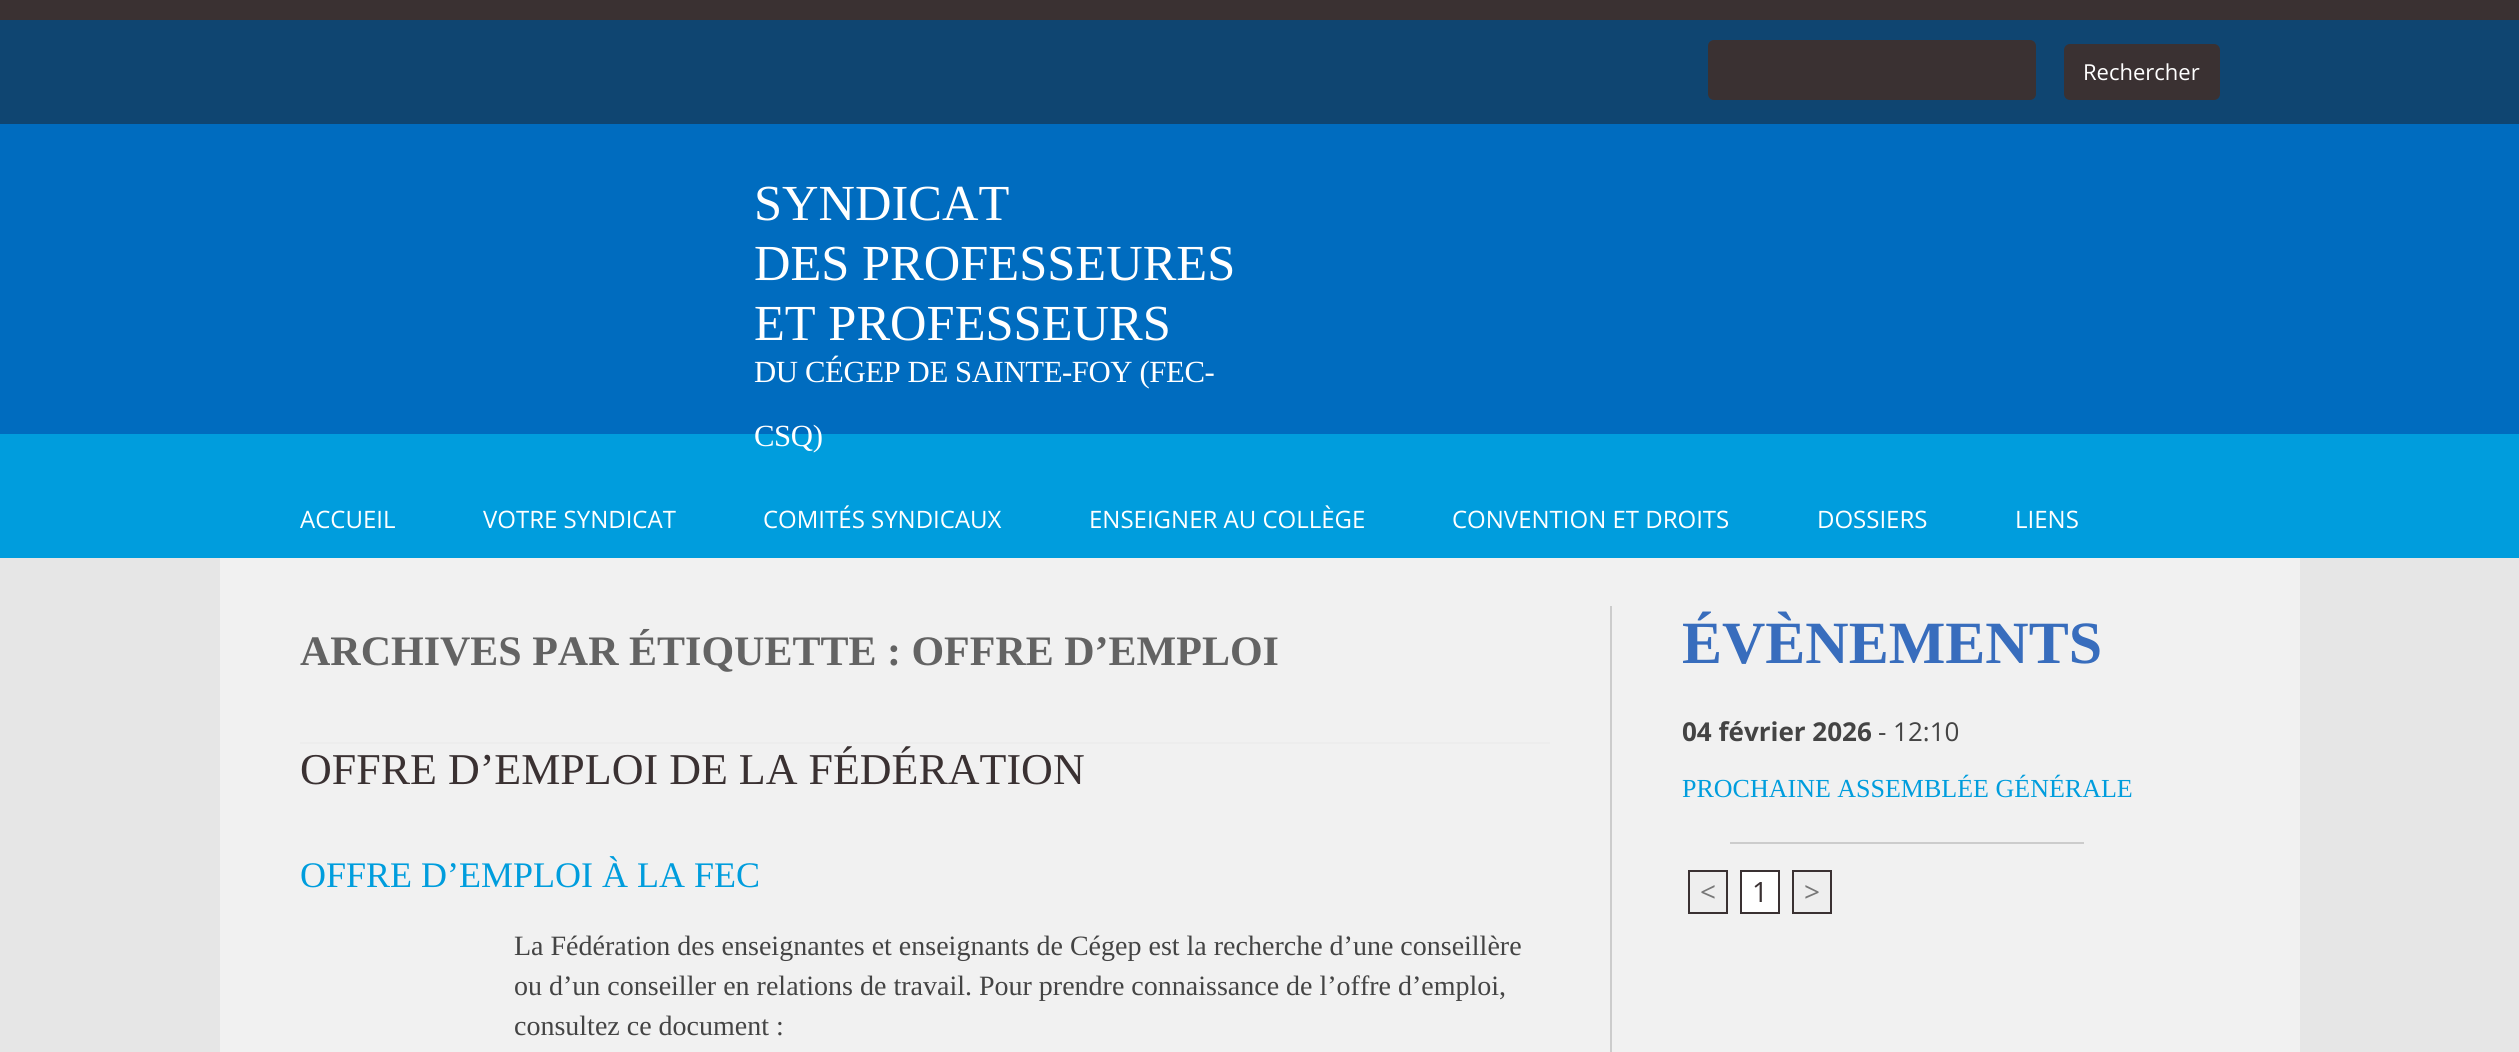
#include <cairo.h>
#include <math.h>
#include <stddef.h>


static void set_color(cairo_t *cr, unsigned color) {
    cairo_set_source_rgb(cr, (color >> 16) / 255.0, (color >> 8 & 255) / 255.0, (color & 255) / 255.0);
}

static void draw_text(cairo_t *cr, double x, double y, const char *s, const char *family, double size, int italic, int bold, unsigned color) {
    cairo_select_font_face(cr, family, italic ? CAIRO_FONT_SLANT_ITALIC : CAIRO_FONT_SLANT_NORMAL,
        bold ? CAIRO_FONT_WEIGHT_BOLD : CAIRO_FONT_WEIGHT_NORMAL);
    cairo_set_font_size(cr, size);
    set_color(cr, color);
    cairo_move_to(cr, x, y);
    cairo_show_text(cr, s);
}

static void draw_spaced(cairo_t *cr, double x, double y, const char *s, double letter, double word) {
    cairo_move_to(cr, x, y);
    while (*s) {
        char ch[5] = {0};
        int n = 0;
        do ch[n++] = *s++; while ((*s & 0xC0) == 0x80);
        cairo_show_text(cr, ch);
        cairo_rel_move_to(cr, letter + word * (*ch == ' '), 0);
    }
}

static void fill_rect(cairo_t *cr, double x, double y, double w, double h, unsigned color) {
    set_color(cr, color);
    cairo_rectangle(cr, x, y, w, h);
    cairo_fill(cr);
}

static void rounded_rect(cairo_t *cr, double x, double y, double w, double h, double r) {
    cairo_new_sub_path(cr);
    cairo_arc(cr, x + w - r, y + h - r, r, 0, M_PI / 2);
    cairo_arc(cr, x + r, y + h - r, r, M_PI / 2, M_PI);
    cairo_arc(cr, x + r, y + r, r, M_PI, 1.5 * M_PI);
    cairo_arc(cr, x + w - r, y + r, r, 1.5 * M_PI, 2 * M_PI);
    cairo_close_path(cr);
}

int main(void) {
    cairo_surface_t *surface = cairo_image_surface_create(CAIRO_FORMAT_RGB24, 2519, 1052);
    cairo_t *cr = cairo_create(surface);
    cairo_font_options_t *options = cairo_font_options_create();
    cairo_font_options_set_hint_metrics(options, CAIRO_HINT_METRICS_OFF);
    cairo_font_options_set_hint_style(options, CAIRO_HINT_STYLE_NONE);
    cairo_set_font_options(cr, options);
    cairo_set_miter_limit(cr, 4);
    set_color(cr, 0xE6E6E6);
    cairo_paint(cr);
    fill_rect(cr, 0, 124, 2519, 310, 0x006CBF);
    fill_rect(cr, 0, 0, 2519, 20, 0x3A3132);
    fill_rect(cr, 0, 20, 2519, 104, 0x0F4571);
    set_color(cr, 0x3A3132);
    rounded_rect(cr, 1708, 40, 328, 60, 6);
    cairo_fill(cr);
    rounded_rect(cr, 2064, 44, 156, 56, 6);
    cairo_fill(cr);
    draw_text(cr, 2083, 80, "Rechercher", "Open Sans", 22, 0, 0, 0xFFFFFF);
    draw_text(cr, 754, 220, "SYNDICAT", "Liberation Serif", 50.5, 0, 0, 0xFFFFFF);
    draw_text(cr, 754, 280, "DES PROFESSEURES", "Liberation Serif", 50.5, 0, 0, 0xFFFFFF);
    draw_text(cr, 754, 340, "ET PROFESSEURS", "Liberation Serif", 50.5, 0, 0, 0xFFFFFF);
    cairo_set_font_size(cr, 30.75);
    draw_spaced(cr, 754, 382, "DU CÉGEP DE SAINTE-FOY (FEC-", -0.4, 0);
    fill_rect(cr, 0, 434, 2519, 124, 0x009DDD);
    set_color(cr, 0xFFFFFF);
    draw_spaced(cr, 754, 446, "CSQ)", -0.4, 0);
    draw_text(cr, 300, 528, "ACCUEIL", "Open Sans", 24, 0, 0, 0xFFFFFF);
    draw_text(cr, 483, 528, "VOTRE SYNDICAT", "Open Sans", 24, 0, 0, 0xFFFFFF);
    draw_text(cr, 763, 528, "COMITÉS SYNDICAUX", "Open Sans", 24, 0, 0, 0xFFFFFF);
    draw_text(cr, 1089, 528, "ENSEIGNER AU COLLÈGE", "Open Sans", 24, 0, 0, 0xFFFFFF);
    draw_text(cr, 1452, 528, "CONVENTION ET DROITS", "Open Sans", 24, 0, 0, 0xFFFFFF);
    draw_text(cr, 1817, 528, "DOSSIERS", "Open Sans", 24, 0, 0, 0xFFFFFF);
    draw_text(cr, 2015, 528, "LIENS", "Open Sans", 24, 0, 0, 0xFFFFFF);
    fill_rect(cr, 220, 558, 2080, 494, 0xF1F1F1);
    fill_rect(cr, 300, 742, 1250, 2, 0xEDEDED);
    draw_text(cr, 300, 665, "ARCHIVES PAR ÉTIQUETTE : OFFRE D’EMPLOI", "Liberation Serif", 42, 0, 1, 0x636363);
    draw_text(cr, 300, 784, "OFFRE D’EMPLOI DE LA FÉDÉRATION", "Liberation Serif", 44, 0, 0, 0x3A3132);
    draw_text(cr, 300, 887, "OFFRE D’EMPLOI À LA FEC", "Liberation Serif", 36, 0, 0, 0x009DDD);
    draw_text(cr, 514, 955, "La Fédération des enseignantes et enseignants de Cégep est la recherche d’une conseillère", "Liberation Serif", 28, 0, 0, 0x444444);
    draw_text(cr, 514, 995, "ou d’un conseiller en relations de travail. Pour prendre connaissance de l’offre d’emploi,", "Liberation Serif", 28, 0, 0, 0x444444);
    draw_text(cr, 514, 1035, "consultez ce document :", "Liberation Serif", 28, 0, 0, 0x444444);
    fill_rect(cr, 1610, 606, 2, 446, 0xCCCCCC);
    draw_text(cr, 1682, 663, "ÉVÈNEMENTS", "Liberation Serif", 60, 0, 1, 0x386DBD);
    draw_text(cr, 1682, 741, "04 février 2026", "Open Sans", 26, 0, 1, 0x444444);
    draw_text(cr, 1878, 741, "- 12:10", "Open Sans", 26, 0, 0, 0x444444);
    draw_text(cr, 1682, 797, "PROCHAINE ASSEMBLÉE GÉNÉRALE", "Liberation Serif", 26, 0, 0, 0x009DDD);
    fill_rect(cr, 1730, 842, 354, 2, 0xCCCCCC);
    set_color(cr, 0xEEEEEE);
    cairo_rectangle(cr, 1689, 871, 38, 42);
    cairo_fill_preserve(cr);
    set_color(cr, 0x3A3132);
    cairo_stroke(cr);
    draw_text(cr, 1700, 902, "<", "Open Sans", 28, 0, 0, 0x777777);
    set_color(cr, 0xFFFFFF);
    cairo_rectangle(cr, 1741, 871, 38, 42);
    cairo_fill_preserve(cr);
    set_color(cr, 0x3A3132);
    cairo_stroke(cr);
    draw_text(cr, 1752, 902, "1", "Open Sans", 28, 0, 0, 0x3A3132);
    set_color(cr, 0xEEEEEE);
    cairo_rectangle(cr, 1793, 871, 38, 42);
    cairo_fill_preserve(cr);
    set_color(cr, 0x3A3132);
    cairo_stroke(cr);
    draw_text(cr, 1804, 902, ">", "Open Sans", 28, 0, 0, 0x777777);
    cairo_surface_write_to_png(surface, "output.png");
    cairo_font_options_destroy(options);
    cairo_destroy(cr);
    cairo_surface_destroy(surface);
    return 0;
}
